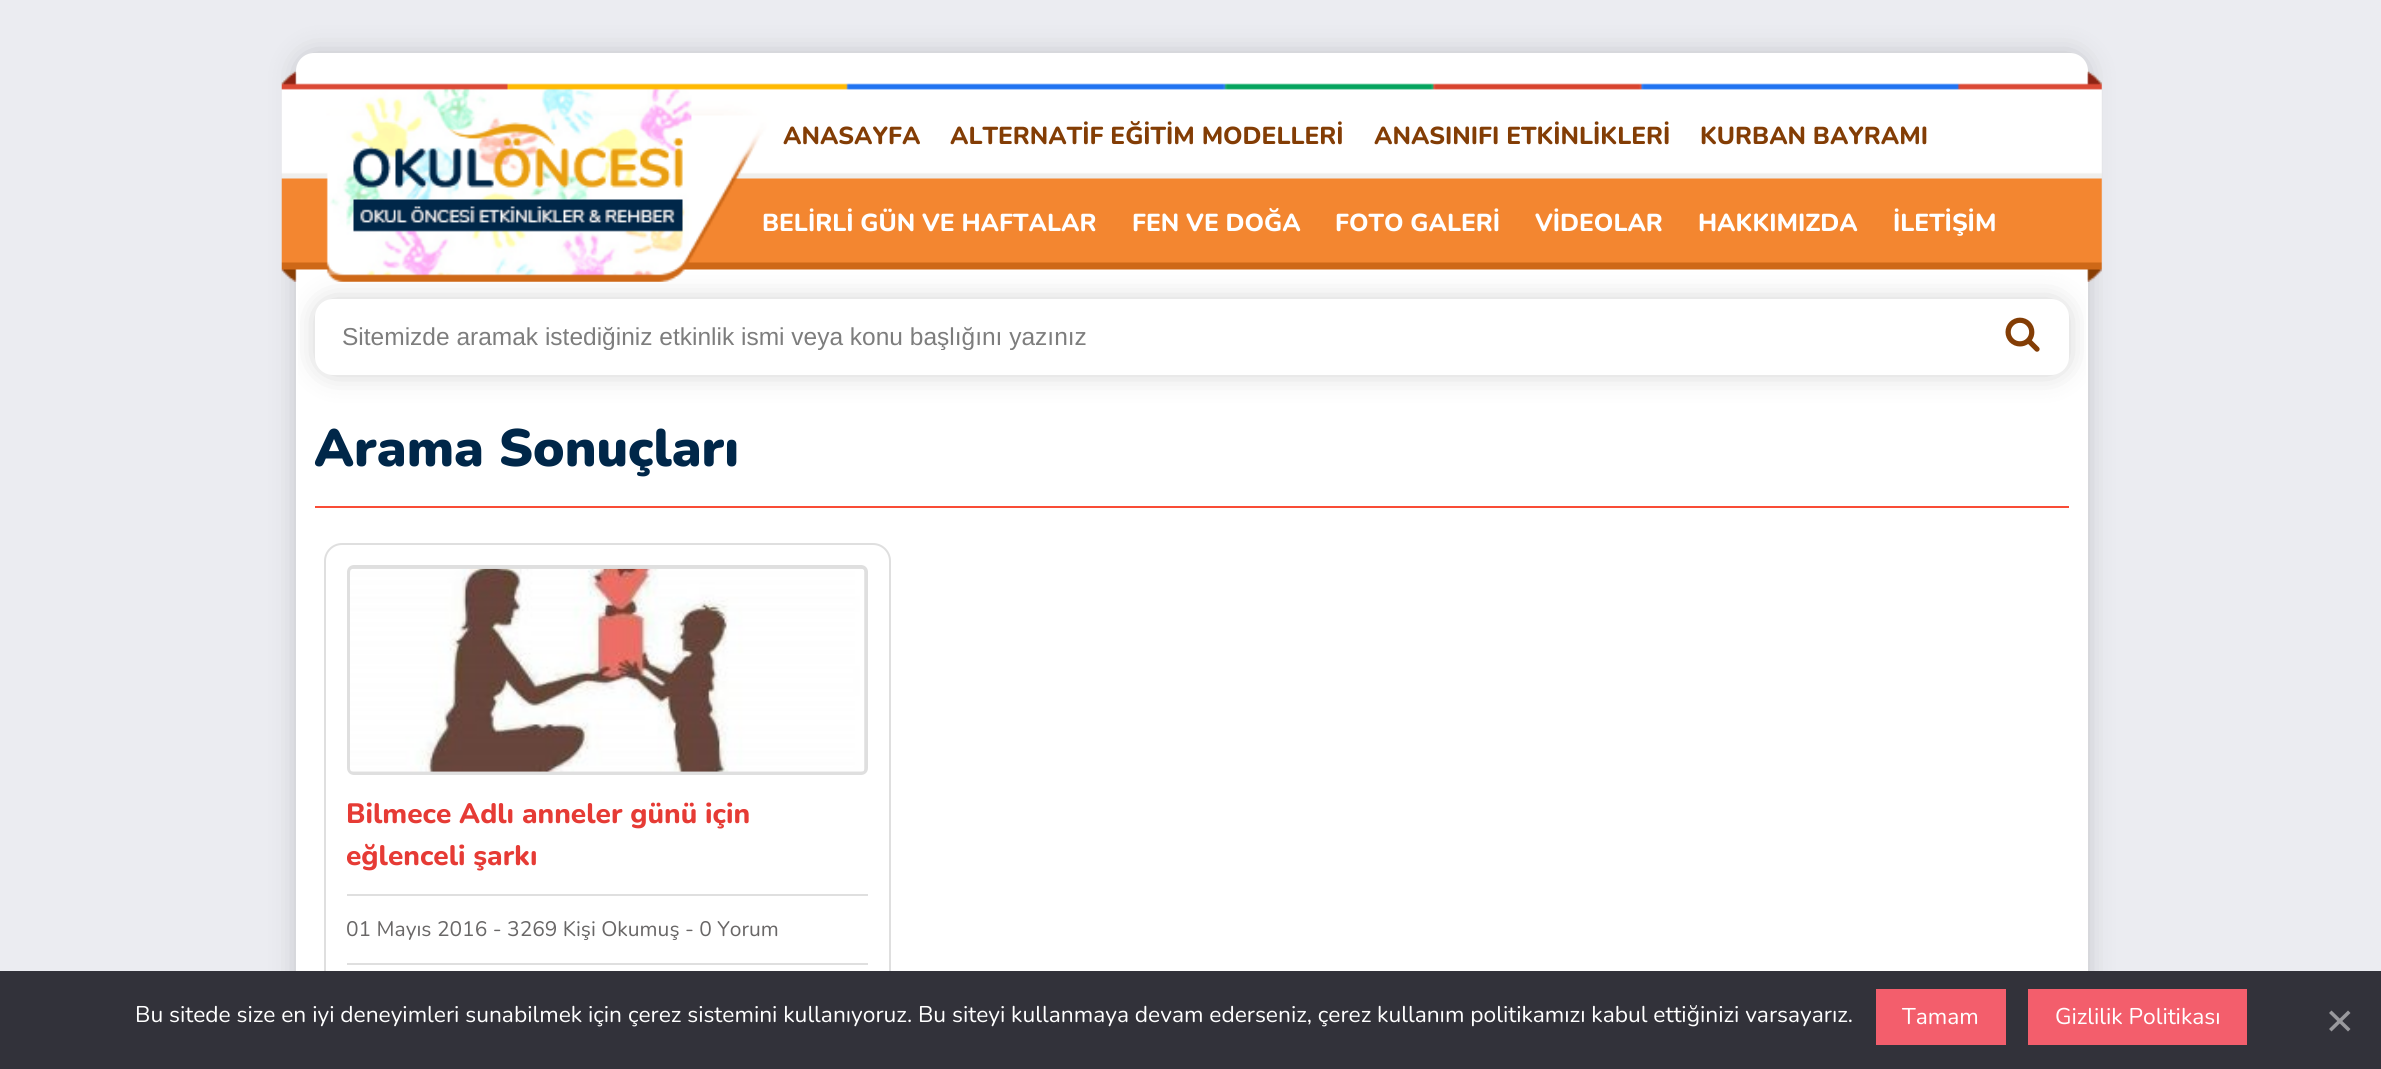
#include <cairo.h>
#include <math.h>
#include <stddef.h>


static void set_color(cairo_t *cr, unsigned color) {
    cairo_set_source_rgb(cr, (color >> 16) / 255.0, (color >> 8 & 255) / 255.0, (color & 255) / 255.0);
}

static void draw_text(cairo_t *cr, double x, double y, const char *s, const char *family, double size, int italic, int bold, unsigned color) {
    cairo_select_font_face(cr, family, italic ? CAIRO_FONT_SLANT_ITALIC : CAIRO_FONT_SLANT_NORMAL,
        bold ? CAIRO_FONT_WEIGHT_BOLD : CAIRO_FONT_WEIGHT_NORMAL);
    cairo_set_font_size(cr, size);
    set_color(cr, color);
    cairo_move_to(cr, x, y);
    cairo_show_text(cr, s);
}

static void fill_rect(cairo_t *cr, double x, double y, double w, double h, unsigned color) {
    set_color(cr, color);
    cairo_rectangle(cr, x, y, w, h);
    cairo_fill(cr);
}

static void rounded_rect(cairo_t *cr, double x, double y, double w, double h, double r) {
    cairo_new_sub_path(cr);
    cairo_arc(cr, x + w - r, y + h - r, r, 0, M_PI / 2);
    cairo_arc(cr, x + r, y + h - r, r, M_PI / 2, M_PI);
    cairo_arc(cr, x + r, y + r, r, M_PI, 1.5 * M_PI);
    cairo_arc(cr, x + w - r, y + r, r, 1.5 * M_PI, 2 * M_PI);
    cairo_close_path(cr);
}

static void draw_shadow(cairo_t *cr, double x, double y, double w, double h, double r, double blur, double alpha) {
    cairo_push_group_with_content(cr, CAIRO_CONTENT_ALPHA);
    cairo_set_operator(cr, CAIRO_OPERATOR_SOURCE);
    for (int i = 15; i >= -15 && fmin(w, h) + blur * i / 3 > 0; i -= 2) {
        double e = blur * i / 6;
        cairo_set_source_rgba(cr, 0, 0, 0, alpha * erfc((i - 1) / 8.5) / 2);
        rounded_rect(cr, x - e, y - e, w + 2 * e, h + 2 * e, fmax(0, fmin(r + e + blur * .6, fmin(w, h) / 2 + e)));
        cairo_fill(cr);
    }
    cairo_pattern_t *soft = cairo_pop_group(cr);
    cairo_mask(cr, soft);
    cairo_pattern_destroy(soft);
}

static void draw_image(cairo_t *cr, const char *path, double x, double y, double w, double h) {
    cairo_surface_t *image = cairo_image_surface_create_from_png(path);
    cairo_save(cr);
    cairo_set_source_surface(cr, image, x, y);
    cairo_rectangle(cr, x, y, w, h);
    cairo_fill(cr);
    cairo_restore(cr);
    cairo_surface_destroy(image);
}

int main(void) {
    cairo_surface_t *surface = cairo_image_surface_create(CAIRO_FORMAT_RGB24, 2381, 1069);
    cairo_t *cr = cairo_create(surface);
    cairo_font_options_t *options = cairo_font_options_create();
    cairo_font_options_set_hint_metrics(options, CAIRO_HINT_METRICS_OFF);
    cairo_font_options_set_hint_style(options, CAIRO_HINT_STYLE_NONE);
    cairo_set_font_options(cr, options);
    cairo_set_miter_limit(cr, 4);
    set_color(cr, 0xEBECF1);
    cairo_paint(cr);
    set_color(cr, 0x212121);
    draw_shadow(cr, 296, 53, 1792, 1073, 18, 13, 0.2);
    set_color(cr, 0xFFFFFF);
    rounded_rect(cr, 297, 54, 1790, 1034, 17);
    cairo_fill_preserve(cr);
    cairo_stroke(cr);
    cairo_save(cr);
    rounded_rect(cr, 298, 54, 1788, 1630, 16);
    cairo_clip(cr);
    set_color(cr, 0x212121);
    draw_shadow(cr, 315, 299, 1754, 76, 18, 13, 0.2);
    cairo_restore(cr);
    draw_image(cr, "assets/img1.png", 281, 71, 1821, 211);
    draw_image(cr, "assets/img2.png", 353, 122, 330, 110);
    draw_text(cr, 783, 144, "ANASAYFA", "Nunito ExtraBold", 24.5, 0, 0, 0x833D05);
    draw_text(cr, 950, 144, "ALTERNATİF EĞİTİM MODELLERİ", "Nunito ExtraBold", 24.5, 0, 0, 0x833D05);
    draw_text(cr, 1374, 144, "ANASINIFI ETKİNLİKLERİ", "Nunito ExtraBold", 24.5, 0, 0, 0x833D05);
    draw_text(cr, 1700, 144, "KURBAN BAYRAMI", "Nunito ExtraBold", 24.5, 0, 0, 0x833D05);
    draw_text(cr, 762, 231, "BELİRLİ GÜN VE HAFTALAR", "Nunito ExtraBold", 24.5, 0, 0, 0xFFFFFF);
    draw_text(cr, 1132, 231, "FEN VE DOĞA", "Nunito ExtraBold", 24.5, 0, 0, 0xFFFFFF);
    draw_text(cr, 1335, 231, "FOTO GALERİ", "Nunito ExtraBold", 24.5, 0, 0, 0xFFFFFF);
    draw_text(cr, 1535, 231, "VİDEOLAR", "Nunito ExtraBold", 24.5, 0, 0, 0xFFFFFF);
    draw_text(cr, 1698, 231, "HAKKIMIZDA", "Nunito ExtraBold", 24.5, 0, 0, 0xFFFFFF);
    draw_text(cr, 1893, 231, "İLETİŞİM", "Nunito ExtraBold", 24.5, 0, 0, 0xFFFFFF);
    rounded_rect(cr, 316, 300, 1752, 74, 17);
    cairo_fill_preserve(cr);
    cairo_stroke(cr);
    cairo_save(cr);
    cairo_rectangle(cr, 343, 322, 1528, 28);
    cairo_clip(cr);
    draw_text(cr, 342, 345, "Sitemizde aramak istediğiniz etkinlik ismi veya konu başlığını yazınız", "Liberation Sans", 24.5, 0, 0, 0x7D7D7D);
    cairo_restore(cr);
    draw_image(cr, "assets/img3.png", 2005, 317, 35, 35);
    fill_rect(cr, 315, 506, 1754, 2, 0xF94C36);
    draw_text(cr, 314, 466, "Arama Sonuçları", "Nunito Black", 52.5, 0, 0, 0x002749);
    rounded_rect(cr, 325, 544, 565, 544, 17);
    set_color(cr, 0xDFDFDF);
    cairo_stroke(cr);
    cairo_new_path(cr);
    cairo_move_to(cr, 354, 565);
    cairo_line_to(cr, 861, 565);
    cairo_curve_to(cr, 865, 565, 868, 568, 868, 572);
    cairo_line_to(cr, 868, 768);
    cairo_curve_to(cr, 868, 772, 865, 775, 861, 775);
    cairo_line_to(cr, 354, 775);
    cairo_curve_to(cr, 350, 775, 347, 772, 347, 768);
    cairo_line_to(cr, 347, 572);
    cairo_curve_to(cr, 347, 568, 350, 565, 354, 565);
    cairo_close_path(cr);
    cairo_fill(cr);
    draw_image(cr, "assets/img4.png", 350, 568, 515, 204);
    draw_text(cr, 346, 823, "Bilmece Adlı anneler günü için", "Nunito ExtraBold", 28, 0, 0, 0xE63B35);
    cairo_save(cr);
    cairo_rectangle(cr, 347, 793, 521, 84);
    cairo_clip(cr);
    draw_text(cr, 346, 865, "eğlenceli şarkı", "Nunito ExtraBold", 28, 0, 0, 0xE63B35);
    cairo_restore(cr);
    fill_rect(cr, 347, 894, 521, 2, 0xDFDFDF);
    fill_rect(cr, 347, 963, 521, 2, 0xDFDFDF);
    cairo_save(cr);
    cairo_rectangle(cr, 347, 896, 521, 67);
    cairo_clip(cr);
    draw_text(cr, 346, 936, "01 Mayıs 2016 - 3269 Kişi Okumuş - 0 Yorum", "Nunito", 21, 0, 0, 0x696767);
    cairo_restore(cr);
    fill_rect(cr, 0, 971, 2381, 98, 0x32323A);
    draw_text(cr, 135, 1022, "Bu sitede size en iyi deneyimleri sunabilmek için çerez sistemini kullanıyoruz. Bu siteyi kullanmaya devam ederseniz, çerez kullanım politikamızı kabul ettiğinizi varsayarız.", "Nunito", 22.75, 0, 0, 0xFFFFFF);
    fill_rect(cr, 1876, 989, 130, 56, 0xF35E6C);
    draw_text(cr, 1902, 1024, "Tamam", "Nunito", 22.75, 0, 0, 0xFFFFFF);
    fill_rect(cr, 2028, 989, 219, 56, 0xF35E6C);
    draw_text(cr, 2055, 1024, "Gizlilik Politikası", "Nunito", 22.75, 0, 0, 0xFFFFFF);
    set_color(cr, 0x99999D);
    cairo_new_path(cr);
    cairo_move_to(cr, 2348, 1010.5);
    cairo_line_to(cr, 2350.5, 1013);
    cairo_line_to(cr, 2331.5, 1031.5);
    cairo_line_to(cr, 2329, 1029);
    cairo_close_path(cr);
    cairo_fill(cr);
    cairo_new_path(cr);
    cairo_move_to(cr, 2329, 1013);
    cairo_line_to(cr, 2331.5, 1010.5);
    cairo_line_to(cr, 2350.5, 1029);
    cairo_line_to(cr, 2348, 1031.5);
    cairo_close_path(cr);
    cairo_fill(cr);
    cairo_surface_write_to_png(surface, "output.png");
    cairo_font_options_destroy(options);
    cairo_destroy(cr);
    cairo_surface_destroy(surface);
    return 0;
}
